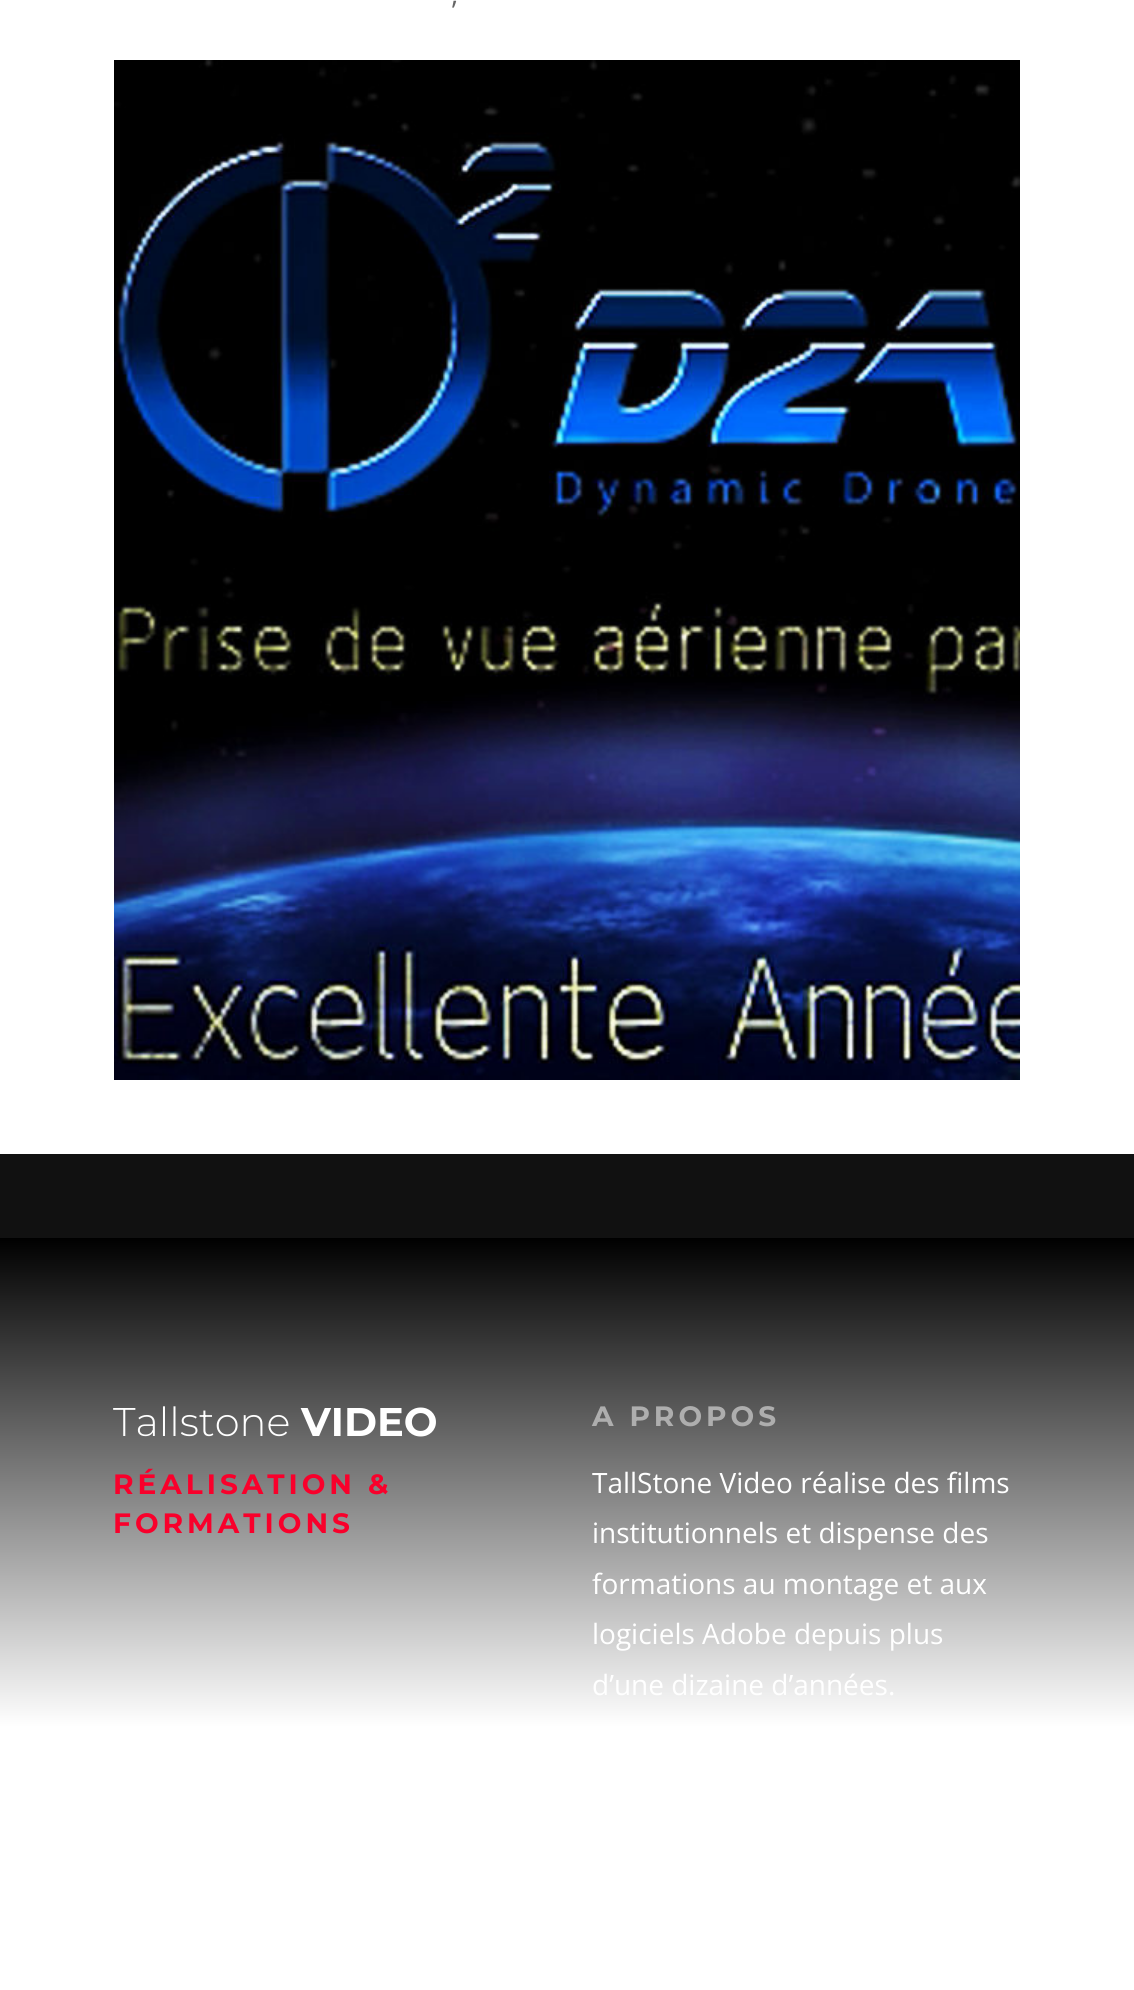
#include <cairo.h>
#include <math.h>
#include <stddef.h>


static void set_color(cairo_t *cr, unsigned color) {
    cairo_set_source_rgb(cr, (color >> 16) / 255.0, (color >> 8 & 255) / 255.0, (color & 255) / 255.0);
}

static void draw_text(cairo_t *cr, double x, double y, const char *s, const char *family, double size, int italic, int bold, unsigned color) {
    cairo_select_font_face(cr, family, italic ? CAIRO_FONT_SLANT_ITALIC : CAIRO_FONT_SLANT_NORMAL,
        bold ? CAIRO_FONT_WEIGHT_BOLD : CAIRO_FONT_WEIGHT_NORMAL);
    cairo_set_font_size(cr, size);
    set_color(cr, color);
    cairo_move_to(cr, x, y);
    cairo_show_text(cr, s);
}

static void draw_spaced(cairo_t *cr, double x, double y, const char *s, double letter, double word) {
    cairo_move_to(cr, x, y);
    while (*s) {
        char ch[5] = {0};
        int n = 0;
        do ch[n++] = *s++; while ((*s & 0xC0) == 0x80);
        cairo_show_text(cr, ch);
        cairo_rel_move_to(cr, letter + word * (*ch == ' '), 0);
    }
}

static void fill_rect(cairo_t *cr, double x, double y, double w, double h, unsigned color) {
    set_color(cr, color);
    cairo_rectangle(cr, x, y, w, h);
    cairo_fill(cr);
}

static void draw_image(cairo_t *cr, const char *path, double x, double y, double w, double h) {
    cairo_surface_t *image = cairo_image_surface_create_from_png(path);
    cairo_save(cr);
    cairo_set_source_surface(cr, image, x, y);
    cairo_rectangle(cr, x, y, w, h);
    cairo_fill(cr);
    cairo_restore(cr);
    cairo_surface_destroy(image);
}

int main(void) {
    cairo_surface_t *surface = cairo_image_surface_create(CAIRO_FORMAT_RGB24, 1134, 1990);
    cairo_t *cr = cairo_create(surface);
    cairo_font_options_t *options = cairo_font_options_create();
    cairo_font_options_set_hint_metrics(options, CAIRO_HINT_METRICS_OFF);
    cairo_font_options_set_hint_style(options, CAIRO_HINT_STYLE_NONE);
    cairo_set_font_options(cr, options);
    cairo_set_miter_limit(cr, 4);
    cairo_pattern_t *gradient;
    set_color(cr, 0x111111);
    cairo_paint(cr);
    fill_rect(cr, 0, 0, 1134, 1154, 0xFFFFFF);
    draw_text(cr, 451, 4, ",", "Open Sans", 28, 0, 0, 0x666666);
    draw_image(cr, "assets/img1.png", 114, 60, 906, 1020);
    gradient = cairo_pattern_create_linear(567, 1238, 567, 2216);
    cairo_pattern_add_color_stop_rgba(gradient, 0, 0, 0, 0, 1);
    cairo_pattern_add_color_stop_rgba(gradient, 0.5, 1, 1, 1, 1);
    cairo_set_source(cr, gradient);
    cairo_pattern_destroy(gradient);
    cairo_rectangle(cr, 0, 1238, 1134, 752);
    cairo_fill(cr);
    draw_text(cr, 113, 1436, "Tallstone", "Montserrat Thin", 40, 0, 0, 0xFFFFFF);
    draw_text(cr, 301, 1436, "VIDEO", "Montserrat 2 Thin", 40, 0, 0, 0xFFFFFF);
    cairo_set_font_size(cr, 28);
    set_color(cr, 0xF9002B);
    draw_spaced(cr, 113, 1494, "RÉALISATION &", 4, 0);
    draw_spaced(cr, 113, 1533, "FORMATIONS", 4, 0);
    set_color(cr, 0xAEAEAE);
    draw_spaced(cr, 592, 1426, "A PROPOS", 4, 0);
    draw_text(cr, 592, 1493, "TallStone Video réalise des films", "Open Sans", 28, 0, 0, 0xFFFFFF);
    draw_text(cr, 592, 1543, "institutionnels et dispense des", "Open Sans", 28, 0, 0, 0xFFFFFF);
    draw_text(cr, 592, 1594, "formations au montage et aux", "Open Sans", 28, 0, 0, 0xFFFFFF);
    draw_text(cr, 592, 1644, "logiciels Adobe depuis plus", "Open Sans", 28, 0, 0, 0xFFFFFF);
    draw_text(cr, 592, 1695, "d’une dizaine d’années.", "Open Sans", 28, 0, 0, 0xFFFFFF);
    cairo_surface_write_to_png(surface, "output.png");
    cairo_font_options_destroy(options);
    cairo_destroy(cr);
    cairo_surface_destroy(surface);
    return 0;
}
